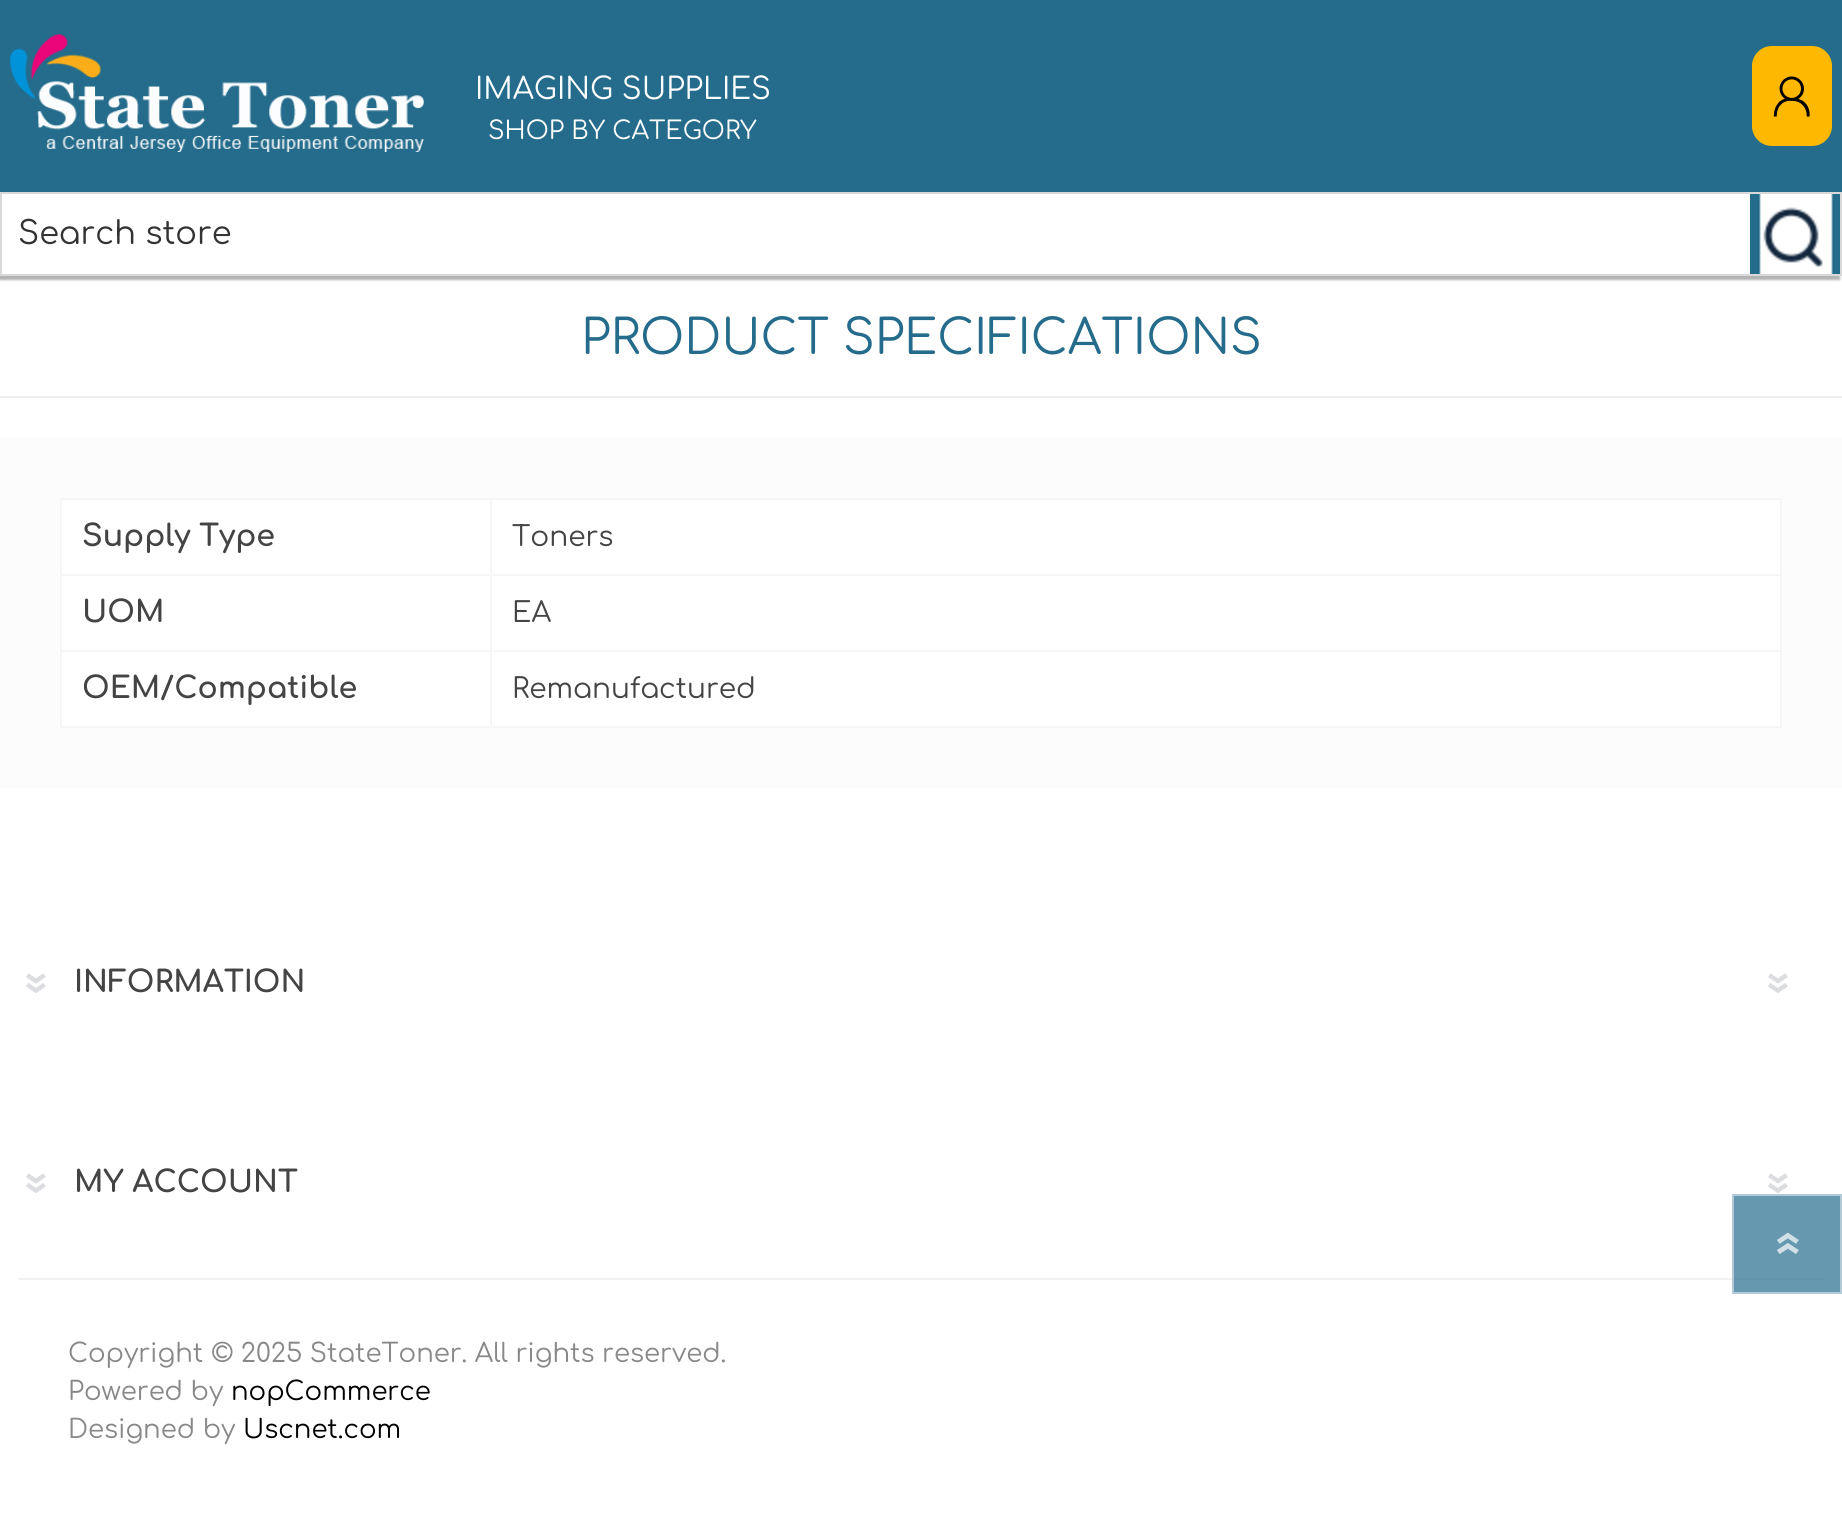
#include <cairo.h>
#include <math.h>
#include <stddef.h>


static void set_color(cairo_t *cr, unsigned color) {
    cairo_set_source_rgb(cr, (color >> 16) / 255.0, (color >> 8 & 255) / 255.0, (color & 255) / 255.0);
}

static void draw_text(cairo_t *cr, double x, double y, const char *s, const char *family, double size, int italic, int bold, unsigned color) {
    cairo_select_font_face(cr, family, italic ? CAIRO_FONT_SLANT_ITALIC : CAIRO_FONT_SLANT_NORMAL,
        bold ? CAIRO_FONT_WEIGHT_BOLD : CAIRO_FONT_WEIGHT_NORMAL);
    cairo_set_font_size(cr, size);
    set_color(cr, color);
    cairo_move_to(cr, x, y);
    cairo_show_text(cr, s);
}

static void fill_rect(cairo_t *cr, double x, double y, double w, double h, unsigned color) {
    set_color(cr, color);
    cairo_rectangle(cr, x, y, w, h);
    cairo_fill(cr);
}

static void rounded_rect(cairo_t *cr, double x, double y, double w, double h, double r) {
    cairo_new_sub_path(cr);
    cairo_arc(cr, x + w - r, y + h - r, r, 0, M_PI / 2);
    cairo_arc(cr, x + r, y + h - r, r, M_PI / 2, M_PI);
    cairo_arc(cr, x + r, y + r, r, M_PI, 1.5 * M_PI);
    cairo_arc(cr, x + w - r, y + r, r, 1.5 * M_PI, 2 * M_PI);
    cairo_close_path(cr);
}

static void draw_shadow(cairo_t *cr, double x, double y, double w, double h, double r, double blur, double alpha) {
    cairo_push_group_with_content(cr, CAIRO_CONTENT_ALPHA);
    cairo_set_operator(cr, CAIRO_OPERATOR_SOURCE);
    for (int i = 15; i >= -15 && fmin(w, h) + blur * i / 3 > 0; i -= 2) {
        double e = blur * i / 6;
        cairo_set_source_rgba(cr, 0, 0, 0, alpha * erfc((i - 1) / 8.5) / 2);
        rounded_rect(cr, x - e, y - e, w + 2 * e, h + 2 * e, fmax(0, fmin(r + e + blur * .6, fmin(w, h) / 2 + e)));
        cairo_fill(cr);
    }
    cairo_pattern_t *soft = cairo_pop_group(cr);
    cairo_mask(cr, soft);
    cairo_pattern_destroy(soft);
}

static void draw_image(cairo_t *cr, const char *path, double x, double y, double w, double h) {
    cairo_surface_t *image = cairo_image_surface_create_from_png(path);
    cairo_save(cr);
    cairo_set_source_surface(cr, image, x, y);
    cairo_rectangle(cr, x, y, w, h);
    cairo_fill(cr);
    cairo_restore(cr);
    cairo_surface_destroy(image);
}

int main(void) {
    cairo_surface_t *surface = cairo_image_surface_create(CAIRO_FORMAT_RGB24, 1842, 1514);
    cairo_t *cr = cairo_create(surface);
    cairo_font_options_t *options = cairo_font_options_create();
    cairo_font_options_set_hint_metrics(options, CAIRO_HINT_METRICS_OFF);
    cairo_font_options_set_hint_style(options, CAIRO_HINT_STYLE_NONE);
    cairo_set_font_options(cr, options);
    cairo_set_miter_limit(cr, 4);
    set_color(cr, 0xFFFFFF);
    cairo_paint(cr);
    fill_rect(cr, 1732, 1194, 110, 100, 0x6698AF);
    fill_rect(cr, 0, 0, 1842, 192, 0x256C8C);
    draw_image(cr, "assets/img1.png", 10, 34, 414, 118);
    draw_text(cr, 475, 99, "IMAGING SUPPLIES", "Comfortaa", 30, 0, 0, 0xFFFFFF);
    draw_text(cr, 488, 139, "SHOP BY CATEGORY", "Comfortaa", 25, 0, 0, 0xFFFFFF);
    set_color(cr, 0x000000);
    draw_shadow(cr, -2, 196, 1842, 84, 0, 1, 0.3);
    fill_rect(cr, 2, 194, 1748, 80, 0xFFFFFF);
    cairo_rectangle(cr, 1, 193, 1840, 82);
    set_color(cr, 0xD9D9D9);
    cairo_stroke(cr);
    draw_text(cr, 18, 244, "Search store", "Comfortaa", 32, 0, 0, 0x333333);
    fill_rect(cr, 1750, 194, 90, 80, 0x256C8C);
    draw_image(cr, "assets/img2.png", 1759, 194, 74, 80);
    set_color(cr, 0xFFB800);
    rounded_rect(cr, 1752, 46, 80, 100, 20);
    cairo_fill(cr);
    draw_image(cr, "assets/img3.png", 1773, 76, 37, 41);
    fill_rect(cr, 0, 396, 1842, 2, 0xEEEEEE);
    draw_text(cr, 581, 354, "PRODUCT SPECIFICATIONS", "Comfortaa", 48, 0, 0, 0x256C8C);
    fill_rect(cr, 0, 438, 1842, 350, 0xFCFCFC);
    fill_rect(cr, 62, 500, 428, 74, 0xFFFFFF);
    fill_rect(cr, 490, 498, 1292, 2, 0xF6F6F6);
    fill_rect(cr, 490, 574, 1292, 2, 0xF6F6F6);
    fill_rect(cr, 490, 650, 1292, 2, 0xF6F6F6);
    fill_rect(cr, 1780, 650, 2, 78, 0xF6F6F6);
    fill_rect(cr, 490, 726, 1292, 2, 0xF6F6F6);
    fill_rect(cr, 490, 650, 2, 78, 0xF6F6F6);
    fill_rect(cr, 60, 650, 432, 2, 0xF6F6F6);
    fill_rect(cr, 490, 574, 2, 78, 0xF6F6F6);
    fill_rect(cr, 60, 574, 432, 2, 0xF6F6F6);
    fill_rect(cr, 490, 498, 2, 78, 0xF6F6F6);
    fill_rect(cr, 60, 498, 432, 2, 0xF6F6F6);
    fill_rect(cr, 60, 726, 432, 2, 0xF6F6F6);
    fill_rect(cr, 60, 650, 2, 78, 0xF6F6F6);
    fill_rect(cr, 60, 574, 2, 78, 0xF6F6F6);
    fill_rect(cr, 60, 498, 2, 78, 0xF6F6F6);
    draw_text(cr, 82, 546, "Supply Type", "Comfortaa", 30, 0, 1, 0x444444);
    fill_rect(cr, 492, 500, 1288, 74, 0xFFFFFF);
    fill_rect(cr, 1780, 574, 2, 78, 0xF6F6F6);
    fill_rect(cr, 1780, 498, 2, 78, 0xF6F6F6);
    draw_text(cr, 512, 546, "Toners", "Comfortaa", 28, 0, 0, 0x444444);
    fill_rect(cr, 62, 576, 428, 74, 0xFFFFFF);
    draw_text(cr, 82, 622, "UOM", "Comfortaa", 30, 0, 1, 0x444444);
    fill_rect(cr, 492, 576, 1288, 74, 0xFFFFFF);
    draw_text(cr, 512, 622, "EA", "Comfortaa", 28, 0, 0, 0x444444);
    fill_rect(cr, 62, 652, 428, 74, 0xFFFFFF);
    draw_text(cr, 82, 698, "OEM/Compatible", "Comfortaa", 30, 0, 1, 0x444444);
    fill_rect(cr, 492, 652, 1288, 74, 0xFFFFFF);
    draw_text(cr, 512, 698, "Remanufactured", "Comfortaa", 28, 0, 0, 0x444444);
    draw_image(cr, "assets/img4.png", 26, 973, 20, 20);
    draw_text(cr, 74, 992, "INFORMATION", "Comfortaa", 30, 0, 1, 0x444444);
    draw_image(cr, "assets/img4.png", 1768, 973, 20, 20);
    draw_image(cr, "assets/img4.png", 26, 1173, 20, 20);
    draw_text(cr, 74, 1192, "MY ACCOUNT", "Comfortaa", 30, 0, 1, 0x444444);
    draw_image(cr, "assets/img4.png", 1768, 1173, 20, 20);
    fill_rect(cr, 18, 1278, 1714, 2, 0xF2F2F2);
    fill_rect(cr, 1732, 1278, 92, 2, 0x6394AB);
    draw_text(cr, 68, 1362, "Copyright © 2025 StateToner. All rights reserved.", "Comfortaa", 26, 0, 0, 0x888888);
    draw_text(cr, 68, 1400, "Powered by", "Comfortaa", 26, 0, 0, 0x888888);
    draw_text(cr, 231, 1400, "nopCommerce", "Comfortaa", 26, 0, 0, 0x000000);
    draw_text(cr, 68, 1438, "Designed by", "Comfortaa", 26, 0, 0, 0x888888);
    draw_text(cr, 243, 1438, "Uscnet.com", "Comfortaa", 26, 0, 0, 0x000000);
    cairo_rectangle(cr, 1733, 1195, 108, 98);
    cairo_set_source_rgba(cr, 1, 1, 1, 0.49);
    cairo_stroke(cr);
    draw_image(cr, "assets/img5.png", 1777, 1232, 22, 22);
    cairo_surface_write_to_png(surface, "output.png");
    cairo_font_options_destroy(options);
    cairo_destroy(cr);
    cairo_surface_destroy(surface);
    return 0;
}
